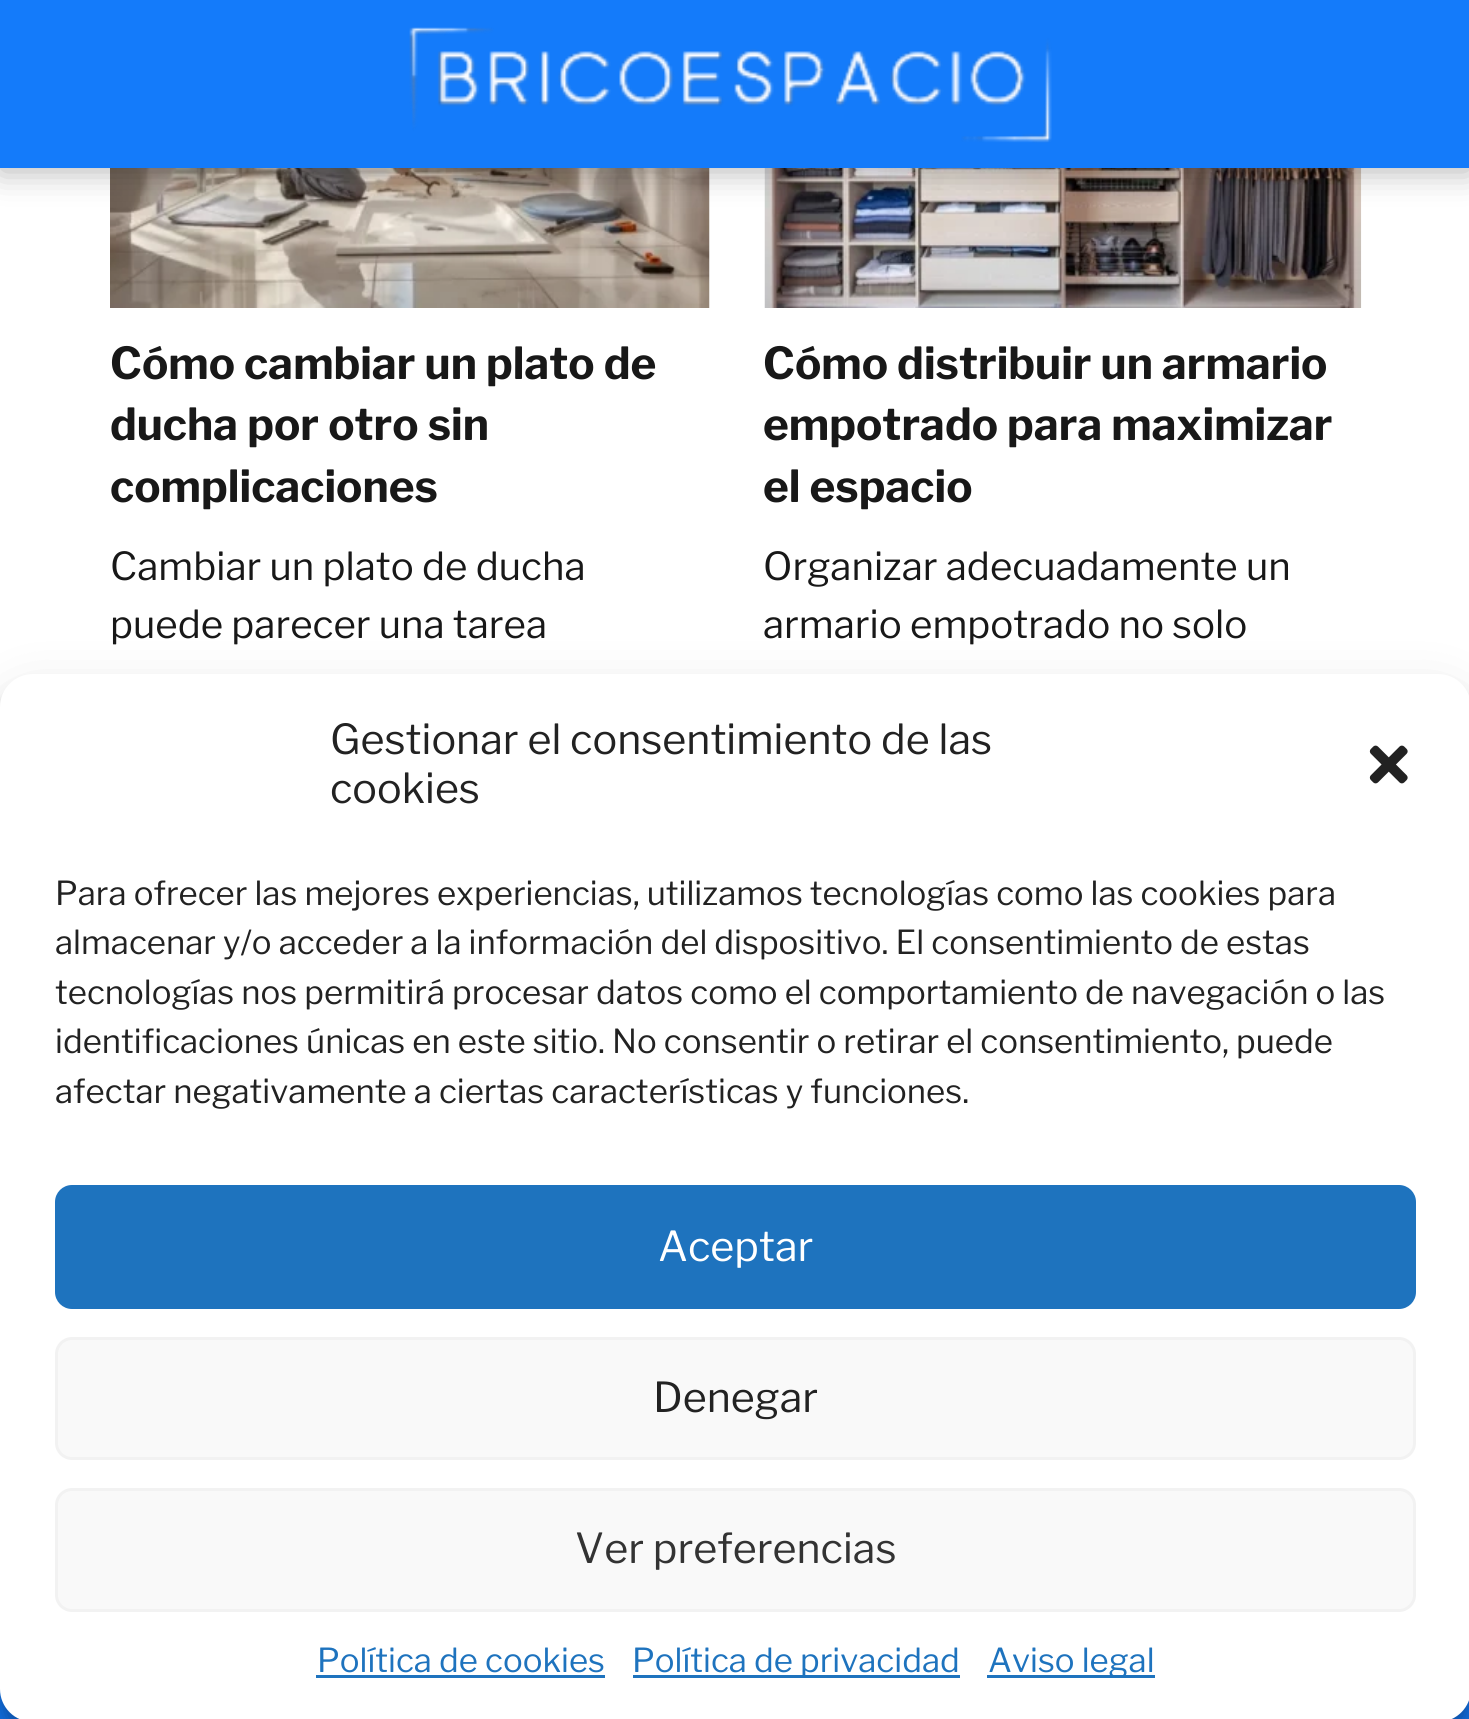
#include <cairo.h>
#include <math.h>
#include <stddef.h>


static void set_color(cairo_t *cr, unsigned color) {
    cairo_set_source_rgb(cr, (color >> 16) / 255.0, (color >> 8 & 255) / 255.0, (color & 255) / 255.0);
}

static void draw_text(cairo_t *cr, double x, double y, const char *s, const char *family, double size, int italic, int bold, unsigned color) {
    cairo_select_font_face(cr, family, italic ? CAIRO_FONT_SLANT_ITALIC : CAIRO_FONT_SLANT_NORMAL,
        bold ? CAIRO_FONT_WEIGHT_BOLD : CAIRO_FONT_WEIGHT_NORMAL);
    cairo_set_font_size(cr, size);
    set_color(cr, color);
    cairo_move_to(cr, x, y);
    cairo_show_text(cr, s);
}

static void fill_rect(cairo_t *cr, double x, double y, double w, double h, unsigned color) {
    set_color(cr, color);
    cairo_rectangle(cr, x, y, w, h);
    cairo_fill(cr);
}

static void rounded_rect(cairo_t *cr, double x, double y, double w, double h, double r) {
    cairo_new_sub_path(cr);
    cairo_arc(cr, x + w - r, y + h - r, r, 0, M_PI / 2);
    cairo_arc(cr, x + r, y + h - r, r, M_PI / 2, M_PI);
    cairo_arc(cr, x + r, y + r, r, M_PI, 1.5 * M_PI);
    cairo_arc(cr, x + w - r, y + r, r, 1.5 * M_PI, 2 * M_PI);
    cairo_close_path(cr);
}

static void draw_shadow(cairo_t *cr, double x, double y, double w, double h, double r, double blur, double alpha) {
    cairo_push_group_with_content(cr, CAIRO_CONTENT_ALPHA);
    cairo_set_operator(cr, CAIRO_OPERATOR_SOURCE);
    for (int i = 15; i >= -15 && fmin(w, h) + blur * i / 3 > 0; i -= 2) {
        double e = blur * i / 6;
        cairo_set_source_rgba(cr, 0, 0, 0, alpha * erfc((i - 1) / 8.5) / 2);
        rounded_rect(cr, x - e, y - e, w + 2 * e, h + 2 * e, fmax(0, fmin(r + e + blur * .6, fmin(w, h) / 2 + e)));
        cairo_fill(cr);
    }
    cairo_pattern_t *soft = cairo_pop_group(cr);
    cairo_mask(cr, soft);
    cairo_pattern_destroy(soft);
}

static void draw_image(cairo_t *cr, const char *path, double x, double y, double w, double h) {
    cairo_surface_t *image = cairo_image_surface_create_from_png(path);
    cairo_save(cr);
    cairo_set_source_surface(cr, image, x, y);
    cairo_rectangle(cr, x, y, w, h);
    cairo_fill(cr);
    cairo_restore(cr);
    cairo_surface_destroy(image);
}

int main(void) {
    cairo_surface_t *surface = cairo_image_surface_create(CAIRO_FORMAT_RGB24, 1469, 1719);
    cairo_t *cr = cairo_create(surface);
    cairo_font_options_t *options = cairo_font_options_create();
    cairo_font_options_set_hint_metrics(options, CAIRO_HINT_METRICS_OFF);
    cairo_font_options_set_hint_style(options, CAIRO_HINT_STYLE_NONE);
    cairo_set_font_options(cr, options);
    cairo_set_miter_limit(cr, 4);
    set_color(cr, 0xFFFFFF);
    cairo_paint(cr);
    draw_image(cr, "assets/img2.png", 110, 168, 600, 140);
    draw_image(cr, "assets/img3.png", 764, 168, 598, 140);
    set_color(cr, 0x000000);
    draw_shadow(cr, 0, 3, 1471, 168, 0, 16.5, 0.3);
    fill_rect(cr, 0, 0, 1469, 168, 0x147BFA);
    draw_image(cr, "assets/img1.png", 409, 27, 643, 116);
    draw_text(cr, 110, 379, "Cómo cambiar un plato de", "Libre Franklin Thin", 44, 0, 0, 0x181818);
    draw_text(cr, 110, 440, "ducha por otro sin", "Libre Franklin Thin", 44, 0, 0, 0x181818);
    draw_text(cr, 110, 502, "complicaciones", "Libre Franklin Thin", 44, 0, 0, 0x181818);
    draw_text(cr, 110, 580, "Cambiar un plato de ducha", "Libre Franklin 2 Thin", 38.5, 0, 0, 0x181818);
    draw_text(cr, 110, 638, "puede parecer una tarea", "Libre Franklin 2 Thin", 38.5, 0, 0, 0x181818);
    draw_text(cr, 763, 379, "Cómo distribuir un armario", "Libre Franklin Thin", 44, 0, 0, 0x181818);
    draw_text(cr, 763, 440, "empotrado para maximizar", "Libre Franklin Thin", 44, 0, 0, 0x181818);
    draw_text(cr, 763, 502, "el espacio", "Libre Franklin Thin", 44, 0, 0, 0x181818);
    draw_text(cr, 763, 580, "Organizar adecuadamente un", "Libre Franklin 2 Thin", 38.5, 0, 0, 0x181818);
    draw_text(cr, 763, 638, "armario empotrado no solo", "Libre Franklin 2 Thin", 38.5, 0, 0, 0x181818);
    fill_rect(cr, 0, 1689, 1469, 30, 0x147BFA);
    set_color(cr, 0x000000);
    draw_shadow(cr, 0, 690, 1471, 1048, 33, 8, 0.23);
    draw_shadow(cr, 0, 701, 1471, 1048, 33, 27.5, 0.19);
    set_color(cr, 0xFFFFFF);
    rounded_rect(cr, 0, 674, 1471, 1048, 33);
    cairo_fill(cr);
    draw_text(cr, 330, 754, "Gestionar el consentimiento de las", "Libre Franklin 2 Thin", 41.25, 0, 0, 0x222222);
    draw_text(cr, 330, 803, "cookies", "Libre Franklin 2 Thin", 41.25, 0, 0, 0x222222);
    draw_image(cr, "assets/img4.png", 1369, 745, 39, 39);
    draw_text(cr, 55, 905, "Para ofrecer las mejores experiencias, utilizamos tecnologías como las cookies para", "Libre Franklin 2 Thin", 33, 0, 0, 0x222222);
    draw_text(cr, 55, 954, "almacenar y/o acceder a la información del dispositivo. El consentimiento de estas", "Libre Franklin 2 Thin", 33, 0, 0, 0x222222);
    draw_text(cr, 55, 1004, "tecnologías nos permitirá procesar datos como el comportamiento de navegación o las", "Libre Franklin 2 Thin", 33, 0, 0, 0x222222);
    draw_text(cr, 55, 1053, "identificaciones únicas en este sitio. No consentir o retirar el consentimiento, puede", "Libre Franklin 2 Thin", 33, 0, 0, 0x222222);
    draw_text(cr, 55, 1103, "afectar negativamente a ciertas características y funciones.", "Libre Franklin 2 Thin", 33, 0, 0, 0x222222);
    set_color(cr, 0x1E73BE);
    rounded_rect(cr, 56.5, 1186.5, 1358, 121, 15.5);
    cairo_fill_preserve(cr);
    cairo_set_line_width(cr, 3);
    cairo_stroke(cr);
    draw_text(cr, 658, 1261, "Aceptar", "Libre Franklin 2 Thin", 41.25, 0, 0, 0xFFFFFF);
    set_color(cr, 0xF9F9F9);
    rounded_rect(cr, 56.5, 1338.5, 1358, 120, 15.5);
    cairo_fill_preserve(cr);
    set_color(cr, 0xF2F2F2);
    cairo_stroke(cr);
    draw_text(cr, 653, 1412, "Denegar", "Libre Franklin 2 Thin", 41.25, 0, 0, 0x222222);
    set_color(cr, 0xF9F9F9);
    rounded_rect(cr, 56.5, 1489.5, 1358, 121, 15.5);
    cairo_fill_preserve(cr);
    set_color(cr, 0xF2F2F2);
    cairo_stroke(cr);
    draw_text(cr, 575, 1563, "Ver preferencias", "Libre Franklin 2 Thin", 41.25, 0, 0, 0x333333);
    draw_text(cr, 317, 1672, "Política de cookies", "Libre Franklin 2 Thin", 33, 0, 0, 0x1E73BE);
    fill_rect(cr, 316, 1675, 289, 3, 0x1E73BE);
    fill_rect(cr, 633, 1675, 327, 3, 0x1E73BE);
    draw_text(cr, 632, 1672, "Política de privacidad", "Libre Franklin 2 Thin", 33, 0, 0, 0x1E73BE);
    fill_rect(cr, 987, 1675, 168, 3, 0x1E73BE);
    draw_text(cr, 988, 1672, "Aviso legal", "Libre Franklin 2 Thin", 33, 0, 0, 0x1E73BE);
    cairo_surface_write_to_png(surface, "output.png");
    cairo_font_options_destroy(options);
    cairo_destroy(cr);
    cairo_surface_destroy(surface);
    return 0;
}
